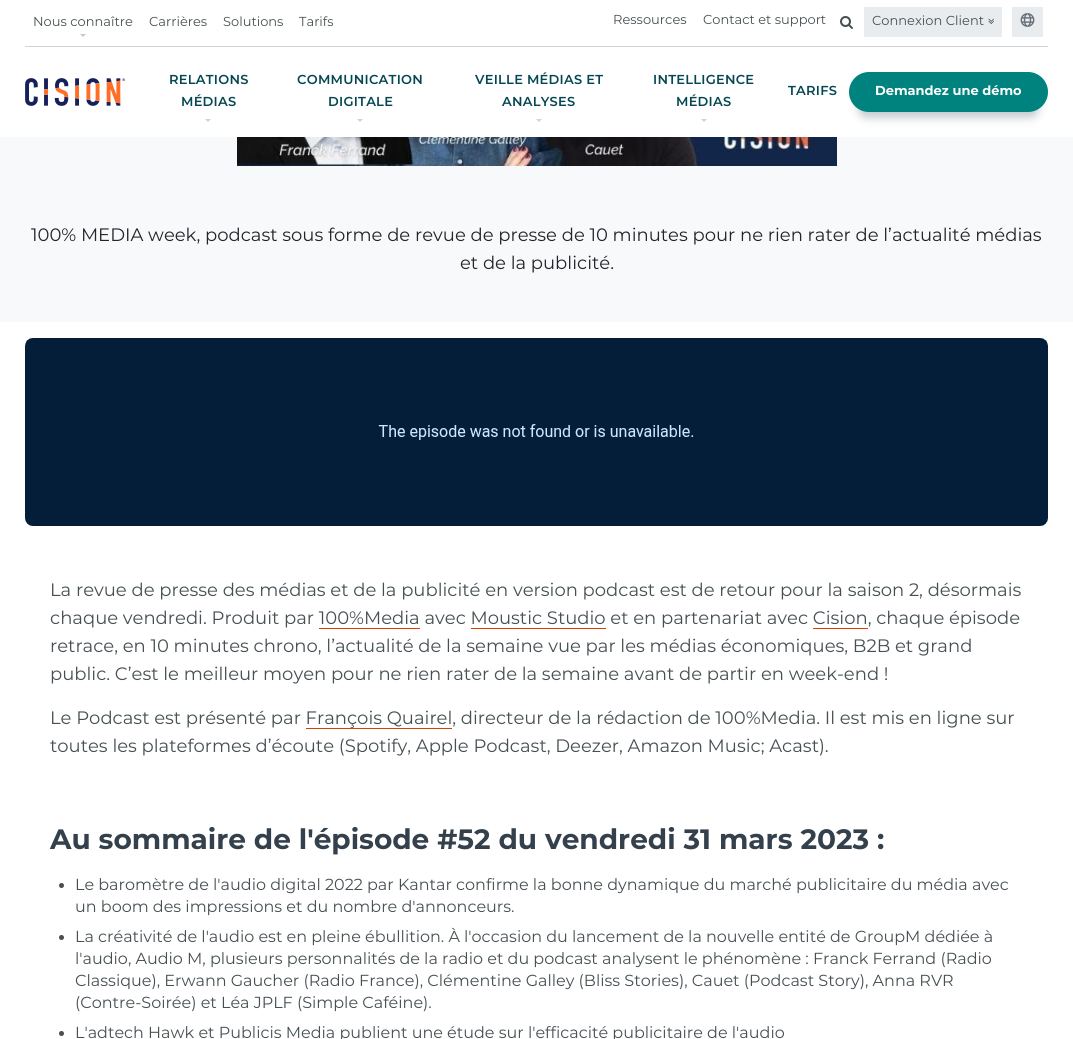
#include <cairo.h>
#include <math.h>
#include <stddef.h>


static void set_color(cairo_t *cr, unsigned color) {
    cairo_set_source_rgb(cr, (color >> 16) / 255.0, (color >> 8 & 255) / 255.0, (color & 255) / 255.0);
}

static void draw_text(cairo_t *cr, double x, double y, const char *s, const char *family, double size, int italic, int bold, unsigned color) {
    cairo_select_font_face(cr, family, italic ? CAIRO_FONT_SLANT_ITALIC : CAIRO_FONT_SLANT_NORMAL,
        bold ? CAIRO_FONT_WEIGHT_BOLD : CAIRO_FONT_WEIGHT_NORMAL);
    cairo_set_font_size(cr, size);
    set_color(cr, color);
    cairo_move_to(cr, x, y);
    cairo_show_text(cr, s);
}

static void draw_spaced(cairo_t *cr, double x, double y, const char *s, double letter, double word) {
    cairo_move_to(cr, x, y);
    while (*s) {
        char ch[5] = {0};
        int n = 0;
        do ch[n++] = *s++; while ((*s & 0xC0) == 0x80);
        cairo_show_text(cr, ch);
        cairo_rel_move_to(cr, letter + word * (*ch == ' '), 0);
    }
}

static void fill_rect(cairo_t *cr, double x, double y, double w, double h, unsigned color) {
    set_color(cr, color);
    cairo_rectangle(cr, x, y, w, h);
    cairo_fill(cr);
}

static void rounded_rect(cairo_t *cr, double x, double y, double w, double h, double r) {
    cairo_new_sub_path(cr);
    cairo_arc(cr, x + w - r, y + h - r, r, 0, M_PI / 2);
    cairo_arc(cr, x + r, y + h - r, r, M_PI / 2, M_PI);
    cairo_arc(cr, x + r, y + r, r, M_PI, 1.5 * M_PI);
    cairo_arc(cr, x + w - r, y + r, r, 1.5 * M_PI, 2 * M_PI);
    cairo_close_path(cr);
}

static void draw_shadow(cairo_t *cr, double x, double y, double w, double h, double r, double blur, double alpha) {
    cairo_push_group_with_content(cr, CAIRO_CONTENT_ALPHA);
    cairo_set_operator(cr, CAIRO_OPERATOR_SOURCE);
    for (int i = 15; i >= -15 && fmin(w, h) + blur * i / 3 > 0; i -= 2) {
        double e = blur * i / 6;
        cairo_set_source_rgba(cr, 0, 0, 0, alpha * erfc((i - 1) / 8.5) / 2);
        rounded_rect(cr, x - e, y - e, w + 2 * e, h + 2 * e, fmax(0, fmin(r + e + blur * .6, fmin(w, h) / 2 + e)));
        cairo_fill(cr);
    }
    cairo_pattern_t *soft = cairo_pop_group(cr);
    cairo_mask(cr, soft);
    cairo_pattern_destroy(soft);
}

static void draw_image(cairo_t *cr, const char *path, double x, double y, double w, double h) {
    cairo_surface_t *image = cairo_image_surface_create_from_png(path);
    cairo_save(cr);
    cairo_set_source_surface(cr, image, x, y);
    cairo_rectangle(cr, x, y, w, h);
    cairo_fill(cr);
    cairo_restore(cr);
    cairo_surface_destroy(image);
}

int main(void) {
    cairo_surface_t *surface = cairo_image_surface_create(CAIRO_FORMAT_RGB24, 1073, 1039);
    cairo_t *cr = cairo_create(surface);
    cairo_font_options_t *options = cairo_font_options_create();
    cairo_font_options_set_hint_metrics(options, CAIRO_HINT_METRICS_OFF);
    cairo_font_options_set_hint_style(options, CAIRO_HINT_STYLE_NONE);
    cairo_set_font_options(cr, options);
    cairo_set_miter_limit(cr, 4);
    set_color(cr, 0xF8F9FA);
    cairo_paint(cr);
    fill_rect(cr, 0, 0, 1073, 137, 0xFFFFFF);
    fill_rect(cr, 25, 46, 1023, 1, 0xD1D3D4);
    draw_text(cr, 33, 26, "Nous connaître", "Montserrat", 13, 0, 0, 0x465053);
    set_color(cr, 0xC8C8C8);
    cairo_new_path(cr);
    cairo_move_to(cr, 80, 34);
    cairo_line_to(cr, 86, 34);
    cairo_line_to(cr, 83, 37);
    cairo_close_path(cr);
    cairo_fill(cr);
    draw_text(cr, 149, 26, "Carrières", "Montserrat", 13, 0, 0, 0x465053);
    draw_text(cr, 223, 26, "Solutions", "Montserrat", 13, 0, 0, 0x465053);
    draw_text(cr, 299, 26, "Tarifs", "Montserrat", 13, 0, 0, 0x465053);
    draw_text(cr, 613, 24, "Ressources", "Montserrat", 13, 0, 0, 0x465053);
    draw_text(cr, 703, 24, "Contact et support", "Montserrat", 13, 0, 0, 0x465053);
    draw_image(cr, "assets/img1.png", 840, 16, 13, 13);
    fill_rect(cr, 864, 7, 138, 30, 0xE9ECEF);
    draw_text(cr, 872, 25, "Connexion Client", "Montserrat", 13, 0, 0, 0x465053);
    draw_image(cr, "assets/img2.png", 988, 18, 6, 6);
    fill_rect(cr, 1012, 7, 31, 30, 0xE9ECEF);
    draw_image(cr, "assets/img3.png", 1020, 13, 15, 14);
    draw_image(cr, "assets/img4.png", 25, 78, 100, 28);
    cairo_select_font_face(cr, "Montserrat SemiBold", CAIRO_FONT_SLANT_NORMAL, CAIRO_FONT_WEIGHT_NORMAL);
    set_color(cr, 0x044753);
    draw_spaced(cr, 169, 84, "RELATIONS", 0.25, 0);
    draw_spaced(cr, 181, 106, "MÉDIAS", 0.25, 0);
    set_color(cr, 0xD1D4D7);
    cairo_new_path(cr);
    cairo_move_to(cr, 205, 119);
    cairo_line_to(cr, 211, 119);
    cairo_line_to(cr, 208, 122);
    cairo_close_path(cr);
    cairo_fill(cr);
    set_color(cr, 0x044753);
    draw_spaced(cr, 297, 84, "COMMUNICATION", 0.25, 0);
    draw_spaced(cr, 328, 106, "DIGITALE", 0.25, 0);
    set_color(cr, 0xD1D4D7);
    cairo_new_path(cr);
    cairo_move_to(cr, 357, 119);
    cairo_line_to(cr, 363, 119);
    cairo_line_to(cr, 360, 122);
    cairo_close_path(cr);
    cairo_fill(cr);
    set_color(cr, 0x044753);
    draw_spaced(cr, 475, 84, "VEILLE MÉDIAS ET", 0.25, 0);
    draw_spaced(cr, 502, 106, "ANALYSES", 0.25, 0);
    set_color(cr, 0xD1D4D7);
    cairo_new_path(cr);
    cairo_move_to(cr, 536, 119);
    cairo_line_to(cr, 542, 119);
    cairo_line_to(cr, 539, 122);
    cairo_close_path(cr);
    cairo_fill(cr);
    set_color(cr, 0x044753);
    draw_spaced(cr, 653, 84, "INTELLIGENCE", 0.25, 0);
    draw_spaced(cr, 676, 106, "MÉDIAS", 0.25, 0);
    set_color(cr, 0xD1D4D7);
    cairo_new_path(cr);
    cairo_move_to(cr, 701, 119);
    cairo_line_to(cr, 707, 119);
    cairo_line_to(cr, 704, 122);
    cairo_close_path(cr);
    cairo_fill(cr);
    set_color(cr, 0x044753);
    draw_spaced(cr, 788, 95, "TARIFS", 0.25, 0);
    set_color(cr, 0x021C26);
    draw_shadow(cr, 859, 97, 179, 20, 10, 5, 0.25);
    set_color(cr, 0x00837E);
    rounded_rect(cr, 849, 72, 199, 40, 20);
    cairo_fill(cr);
    draw_text(cr, 875, 95, "Demandez une démo", "Montserrat", 13, 0, 1, 0xFFFFFF);
    draw_image(cr, "assets/img5.png", 237, 137, 600, 29);
    draw_text(cr, 31, 241, "100% MEDIA week, podcast sous forme de revue de presse de 10 minutes pour ne rien rater de l’actualité médias", "Montserrat", 18, 0, 0, 0x212529);
    draw_text(cr, 460, 269, "et de la publicité.", "Montserrat", 18, 0, 0, 0x212529);
    fill_rect(cr, 0, 322, 1073, 717, 0xFFFFFF);
    draw_image(cr, "assets/img6.png", 25, 338, 1023, 188);
    draw_text(cr, 50, 596, "La revue de presse des médias et de la publicité en version podcast est de retour pour la saison 2, désormais", "Montserrat", 18, 0, 0, 0x465053);
    draw_text(cr, 50, 624, "chaque vendredi. Produit par 100%Media avec Moustic Studio et en partenariat avec Cision, chaque épisode", "Montserrat", 18, 0, 0, 0x465053);
    fill_rect(cr, 319, 628, 101, 1, 0xD34203);
    fill_rect(cr, 471, 628, 135, 1, 0xD34203);
    fill_rect(cr, 813, 628, 55, 1, 0xD34203);
    draw_text(cr, 50, 652, "retrace, en 10 minutes chrono, l’actualité de la semaine vue par les médias économiques, B2B et grand", "Montserrat", 18, 0, 0, 0x465053);
    draw_text(cr, 50, 680, "public. C’est le meilleur moyen pour ne rien rater de la semaine avant de partir en week-end !", "Montserrat", 18, 0, 0, 0x465053);
    draw_text(cr, 50, 724, "Le Podcast est présenté par François Quairel, directeur de la rédaction de 100%Media. Il est mis en ligne sur", "Montserrat", 18, 0, 0, 0x465053);
    fill_rect(cr, 306, 728, 146, 1, 0xD34203);
    draw_text(cr, 50, 752, "toutes les plateformes d’écoute (Spotify, Apple Podcast, Deezer, Amazon Music; Acast).", "Montserrat", 18, 0, 0, 0x465053);
    draw_text(cr, 50, 849, "Au sommaire de l'épisode #52 du vendredi 31 mars 2023 :", "Montserrat", 28, 0, 1, 0x34404B);
    set_color(cr, 0x465053);
    cairo_new_path(cr);
    cairo_arc(cr, 61.5, 885.5, 2.5, 0, 2 * M_PI);
    cairo_fill(cr);
    draw_text(cr, 75, 890, "Le baromètre de l'audio digital 2022 par Kantar confirme la bonne dynamique du marché publicitaire du média avec", "Montserrat", 16, 0, 0, 0x465053);
    draw_text(cr, 75, 912, "un boom des impressions et du nombre d'annonceurs.", "Montserrat", 16, 0, 0, 0x465053);
    cairo_new_path(cr);
    cairo_arc(cr, 61.5, 937.5, 2.5, 0, 2 * M_PI);
    cairo_fill(cr);
    draw_text(cr, 75, 942, "La créativité de l'audio est en pleine ébullition. À l'occasion du lancement de la nouvelle entité de GroupM dédiée à", "Montserrat", 16, 0, 0, 0x465053);
    draw_text(cr, 75, 964, "l'audio, Audio M, plusieurs personnalités de la radio et du podcast analysent le phénomène : Franck Ferrand (Radio", "Montserrat", 16, 0, 0, 0x465053);
    draw_text(cr, 75, 986, "Classique), Erwann Gaucher (Radio France), Clémentine Galley (Bliss Stories), Cauet (Podcast Story), Anna RVR", "Montserrat", 16, 0, 0, 0x465053);
    draw_text(cr, 75, 1008, "(Contre-Soirée) et Léa JPLF (Simple Caféine).", "Montserrat", 16, 0, 0, 0x465053);
    cairo_new_path(cr);
    cairo_arc(cr, 61.5, 1033.5, 2.5, 0, 2 * M_PI);
    cairo_fill(cr);
    draw_text(cr, 75, 1038, "L'adtech Hawk et Publicis Media publient une étude sur l'efficacité publicitaire de l'audio", "Montserrat", 16, 0, 0, 0x465053);
    cairo_surface_write_to_png(surface, "output.png");
    cairo_font_options_destroy(options);
    cairo_destroy(cr);
    cairo_surface_destroy(surface);
    return 0;
}
